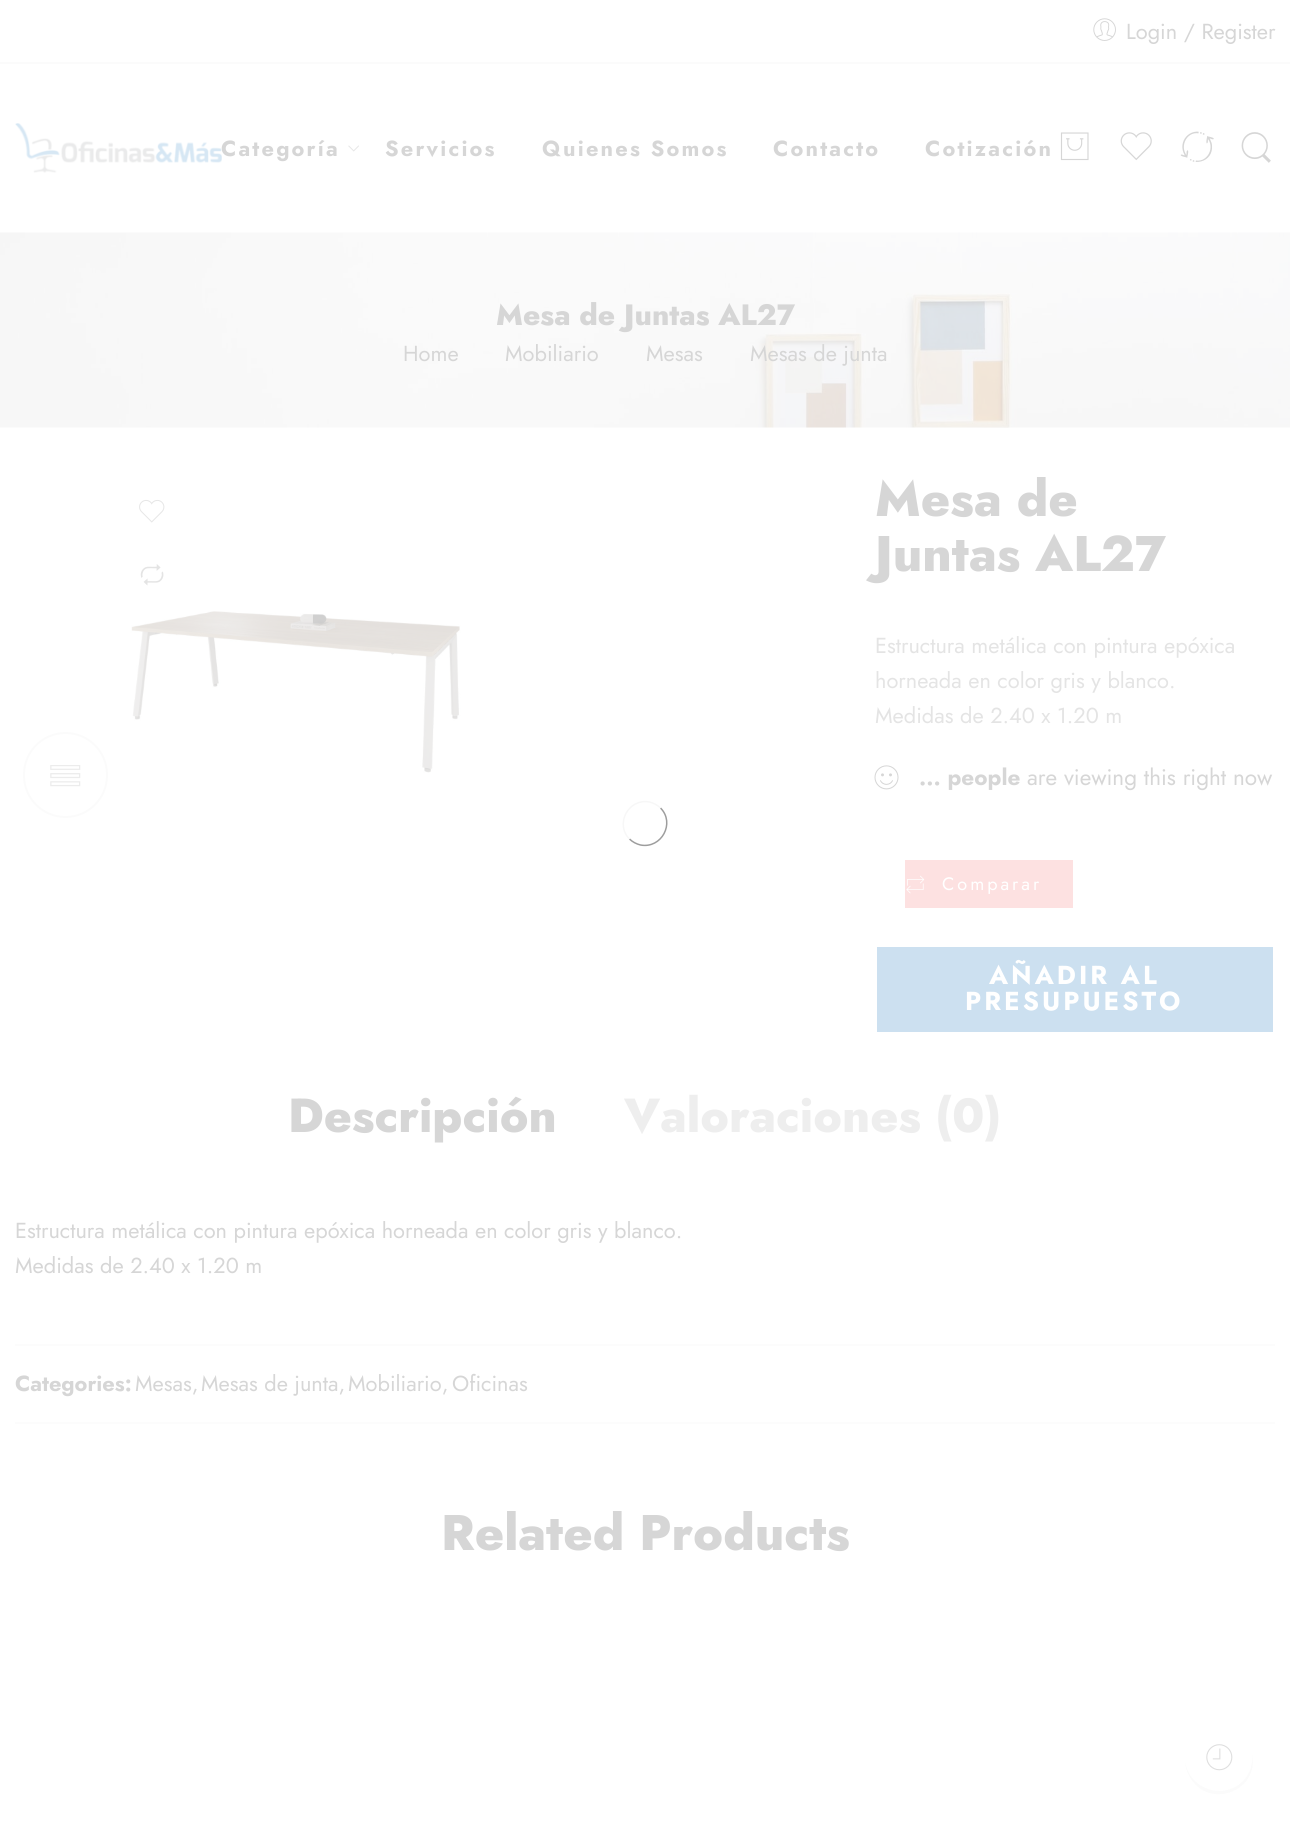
#include <cairo.h>
#include <math.h>
#include <stddef.h>


static void set_color(cairo_t *cr, unsigned color) {
    cairo_set_source_rgb(cr, (color >> 16) / 255.0, (color >> 8 & 255) / 255.0, (color & 255) / 255.0);
}

static void draw_text(cairo_t *cr, double x, double y, const char *s, const char *family, double size, int italic, int bold, unsigned color) {
    cairo_select_font_face(cr, family, italic ? CAIRO_FONT_SLANT_ITALIC : CAIRO_FONT_SLANT_NORMAL,
        bold ? CAIRO_FONT_WEIGHT_BOLD : CAIRO_FONT_WEIGHT_NORMAL);
    cairo_set_font_size(cr, size);
    set_color(cr, color);
    cairo_move_to(cr, x, y);
    cairo_show_text(cr, s);
}

static void draw_spaced(cairo_t *cr, double x, double y, const char *s, double letter, double word) {
    cairo_move_to(cr, x, y);
    while (*s) {
        char ch[5] = {0};
        int n = 0;
        do ch[n++] = *s++; while ((*s & 0xC0) == 0x80);
        cairo_show_text(cr, ch);
        cairo_rel_move_to(cr, letter + word * (*ch == ' '), 0);
    }
}

static void fill_rect(cairo_t *cr, double x, double y, double w, double h, unsigned color) {
    set_color(cr, color);
    cairo_rectangle(cr, x, y, w, h);
    cairo_fill(cr);
}

static void rounded_rect(cairo_t *cr, double x, double y, double w, double h, double r) {
    cairo_new_sub_path(cr);
    cairo_arc(cr, x + w - r, y + h - r, r, 0, M_PI / 2);
    cairo_arc(cr, x + r, y + h - r, r, M_PI / 2, M_PI);
    cairo_arc(cr, x + r, y + r, r, M_PI, 1.5 * M_PI);
    cairo_arc(cr, x + w - r, y + r, r, 1.5 * M_PI, 2 * M_PI);
    cairo_close_path(cr);
}

static void draw_image(cairo_t *cr, const char *path, double x, double y, double w, double h) {
    cairo_surface_t *image = cairo_image_surface_create_from_png(path);
    cairo_save(cr);
    cairo_set_source_surface(cr, image, x, y);
    cairo_rectangle(cr, x, y, w, h);
    cairo_fill(cr);
    cairo_restore(cr);
    cairo_surface_destroy(image);
}

int main(void) {
    cairo_surface_t *surface = cairo_image_surface_create(CAIRO_FORMAT_RGB24, 1290, 1828);
    cairo_t *cr = cairo_create(surface);
    cairo_font_options_t *options = cairo_font_options_create();
    cairo_font_options_set_hint_metrics(options, CAIRO_HINT_METRICS_OFF);
    cairo_font_options_set_hint_style(options, CAIRO_HINT_STYLE_NONE);
    cairo_set_font_options(cr, options);
    cairo_set_miter_limit(cr, 4);
    set_color(cr, 0xFFFFFF);
    cairo_paint(cr);
    fill_rect(cr, 0, 62, 1290, 2, 0xFBFBFB);
    draw_image(cr, "assets/img1.png", 1093, 18, 23, 23);
    draw_text(cr, 1126, 39, "Login / Register", "Jost", 21.75, 0, 0, 0xD6D6D6);
    draw_image(cr, "assets/img2.png", 15, 123, 207, 50);
    cairo_select_font_face(cr, "Jost", CAIRO_FONT_SLANT_NORMAL, CAIRO_FONT_WEIGHT_BOLD);
    draw_spaced(cr, 221, 156, "Categoría", 2.2, 0);
    draw_image(cr, "assets/img3.png", 348, 145, 11, 7);
    draw_spaced(cr, 385, 156, "Servicios", 2.2, 0);
    draw_spaced(cr, 542, 156, "Quienes Somos", 2.2, 0);
    draw_spaced(cr, 773, 156, "Contacto", 2.2, 0);
    draw_spaced(cr, 925, 156, "Cotización", 2.2, 0);
    draw_image(cr, "assets/img4.png", 1060, 132, 29, 29);
    draw_image(cr, "assets/img5.png", 1120, 132, 32, 29);
    draw_text(cr, 1178, 168, "3", "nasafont", 38, 0, 0, 0xD6D6D6);
    draw_image(cr, "assets/img6.png", 1241, 132, 30, 31);
    draw_image(cr, "assets/img7.png", 0, 232, 1290, 196);
    draw_text(cr, 496, 325, "Mesa de Juntas AL27", "Jost ExtraBold", 29.4, 0, 0, 0xD6D6D6);
    draw_text(cr, 403, 361, "Home", "Jost", 21.75, 0, 0, 0xD6D6D6);
    draw_text(cr, 505, 361, "Mobiliario", "Jost", 21.75, 0, 0, 0xD6D6D6);
    draw_text(cr, 646, 361, "Mesas", "Jost", 21.75, 0, 0, 0xD6D6D6);
    draw_text(cr, 750, 361, "Mesas de junta", "Jost", 21.75, 0, 0, 0xD6D6D6);
    draw_image(cr, "assets/img8.png", 139, 499, 26, 24);
    draw_text(cr, 137, 590, "\"", "nasafont", 30, 0, 0, 0xE4E4E4);
    draw_image(cr, "assets/img9.png", 130, 611, 331, 162);
    draw_text(cr, 875, 516, "Mesa de", "Jost ExtraBold", 50, 0, 0, 0xD6D6D6);
    draw_text(cr, 875, 571, "Juntas AL27", "Jost ExtraBold", 50, 0, 0, 0xD6D6D6);
    draw_text(cr, 875, 653, "Estructura metálica con pintura epóxica", "Jost", 21.75, 0, 0, 0xE4E4E4);
    draw_text(cr, 875, 688, "horneada en color gris y blanco.", "Jost", 21.75, 0, 0, 0xE4E4E4);
    draw_text(cr, 875, 723, "Medidas de 2.40 x 1.20 m", "Jost", 21.75, 0, 0, 0xE4E4E4);
    draw_image(cr, "assets/img10.png", 874, 765, 25, 25);
    draw_text(cr, 919, 785, "... people", "Jost", 22.5, 0, 1, 0xD6D6D6);
    draw_text(cr, 1027, 785, "are viewing this right now", "Jost", 22.5, 0, 0, 0xD6D6D6);
    fill_rect(cr, 905, 860, 168, 48, 0xFDE1E1);
    draw_image(cr, "assets/img11.png", 906, 875, 19, 19);
    cairo_set_font_size(cr, 18);
    set_color(cr, 0xFFFFFF);
    draw_spaced(cr, 942, 890, "Comparar", 3, 0);
    fill_rect(cr, 877, 947, 396, 85, 0xCCE0F0);
    cairo_select_font_face(cr, "Jost", CAIRO_FONT_SLANT_NORMAL, CAIRO_FONT_WEIGHT_BOLD);
    cairo_set_font_size(cr, 26);
    set_color(cr, 0xFFFFFF);
    draw_spaced(cr, 989, 984, "AÑADIR AL", 3, 0);
    draw_spaced(cr, 965, 1010, "PRESUPUESTO", 3, 0);
    draw_text(cr, 288, 1132, "Descripción", "Jost ExtraBold", 47.75, 0, 0, 0xD6D6D6);
    draw_text(cr, 624, 1132, "Valoraciones (0)", "Jost ExtraBold", 47.75, 0, 0, 0xEEEEEE);
    draw_text(cr, 15, 1238, "Estructura metálica con pintura epóxica horneada en color gris y blanco.", "Jost", 21.75, 0, 0, 0xD6D6D6);
    draw_text(cr, 15, 1273, "Medidas de 2.40 x 1.20 m", "Jost", 21.75, 0, 0, 0xD6D6D6);
    fill_rect(cr, 15, 1344, 1260, 2, 0xFCFCFC);
    fill_rect(cr, 15, 1422, 1260, 2, 0xFCFCFC);
    draw_text(cr, 15, 1391, "Categories:", "Jost", 21.75, 0, 1, 0xD6D6D6);
    draw_text(cr, 135, 1391, "Mesas,", "Jost", 21.75, 0, 0, 0xD6D6D6);
    draw_text(cr, 201, 1391, "Mesas de junta,", "Jost", 21.75, 0, 0, 0xD6D6D6);
    draw_text(cr, 348, 1391, "Mobiliario,", "Jost", 21.75, 0, 0, 0xD6D6D6);
    draw_text(cr, 452, 1391, "Oficinas", "Jost", 21.75, 0, 0, 0xD6D6D6);
    rounded_rect(cr, 24, 733, 83, 84, 41.5);
    set_color(cr, 0xFBFBFB);
    cairo_stroke(cr);
    draw_image(cr, "assets/img12.png", 50, 765, 31, 22);
    draw_text(cr, 441, 1550, "Related Products", "Jost ExtraBold", 50, 0, 0, 0xD6D6D6);
    cairo_new_path(cr);
    cairo_move_to(cr, 660.5, 808);
    cairo_curve_to(cr, 675.5, 823, 661.5, 849, 640.5, 845);
    cairo_curve_to(cr, 636.5, 844, 632.5, 842, 629.5, 839);
    set_color(cr, 0x9D9D9D);
    cairo_set_line_width(cr, 1.5);
    cairo_stroke(cr);
    cairo_new_path(cr);
    cairo_move_to(cr, 629.5, 839);
    cairo_curve_to(cr, 614.5, 824, 628.5, 798, 649.5, 802);
    cairo_curve_to(cr, 653.5, 803, 657.5, 805, 660.5, 808);
    set_color(cr, 0xF7F7F7);
    cairo_stroke(cr);
    cairo_set_source_rgba(cr, 0.8, 0.8, 0.8, 0.08);
    cairo_new_path(cr);
    cairo_move_to(cr, 1185, 1759);
    cairo_curve_to(cr, 1185, 1766, 1187, 1773, 1191, 1779);
    cairo_curve_to(cr, 1211, 1810, 1260, 1790, 1252, 1754);
    cairo_curve_to(cr, 1253, 1762, 1251, 1770, 1247, 1776);
    cairo_curve_to(cr, 1229, 1803, 1187, 1791, 1185, 1759);
    cairo_close_path(cr);
    cairo_fill(cr);
    draw_image(cr, "assets/img13.png", 1206, 1744, 27, 27);
    cairo_surface_write_to_png(surface, "output.png");
    cairo_font_options_destroy(options);
    cairo_destroy(cr);
    cairo_surface_destroy(surface);
    return 0;
}
